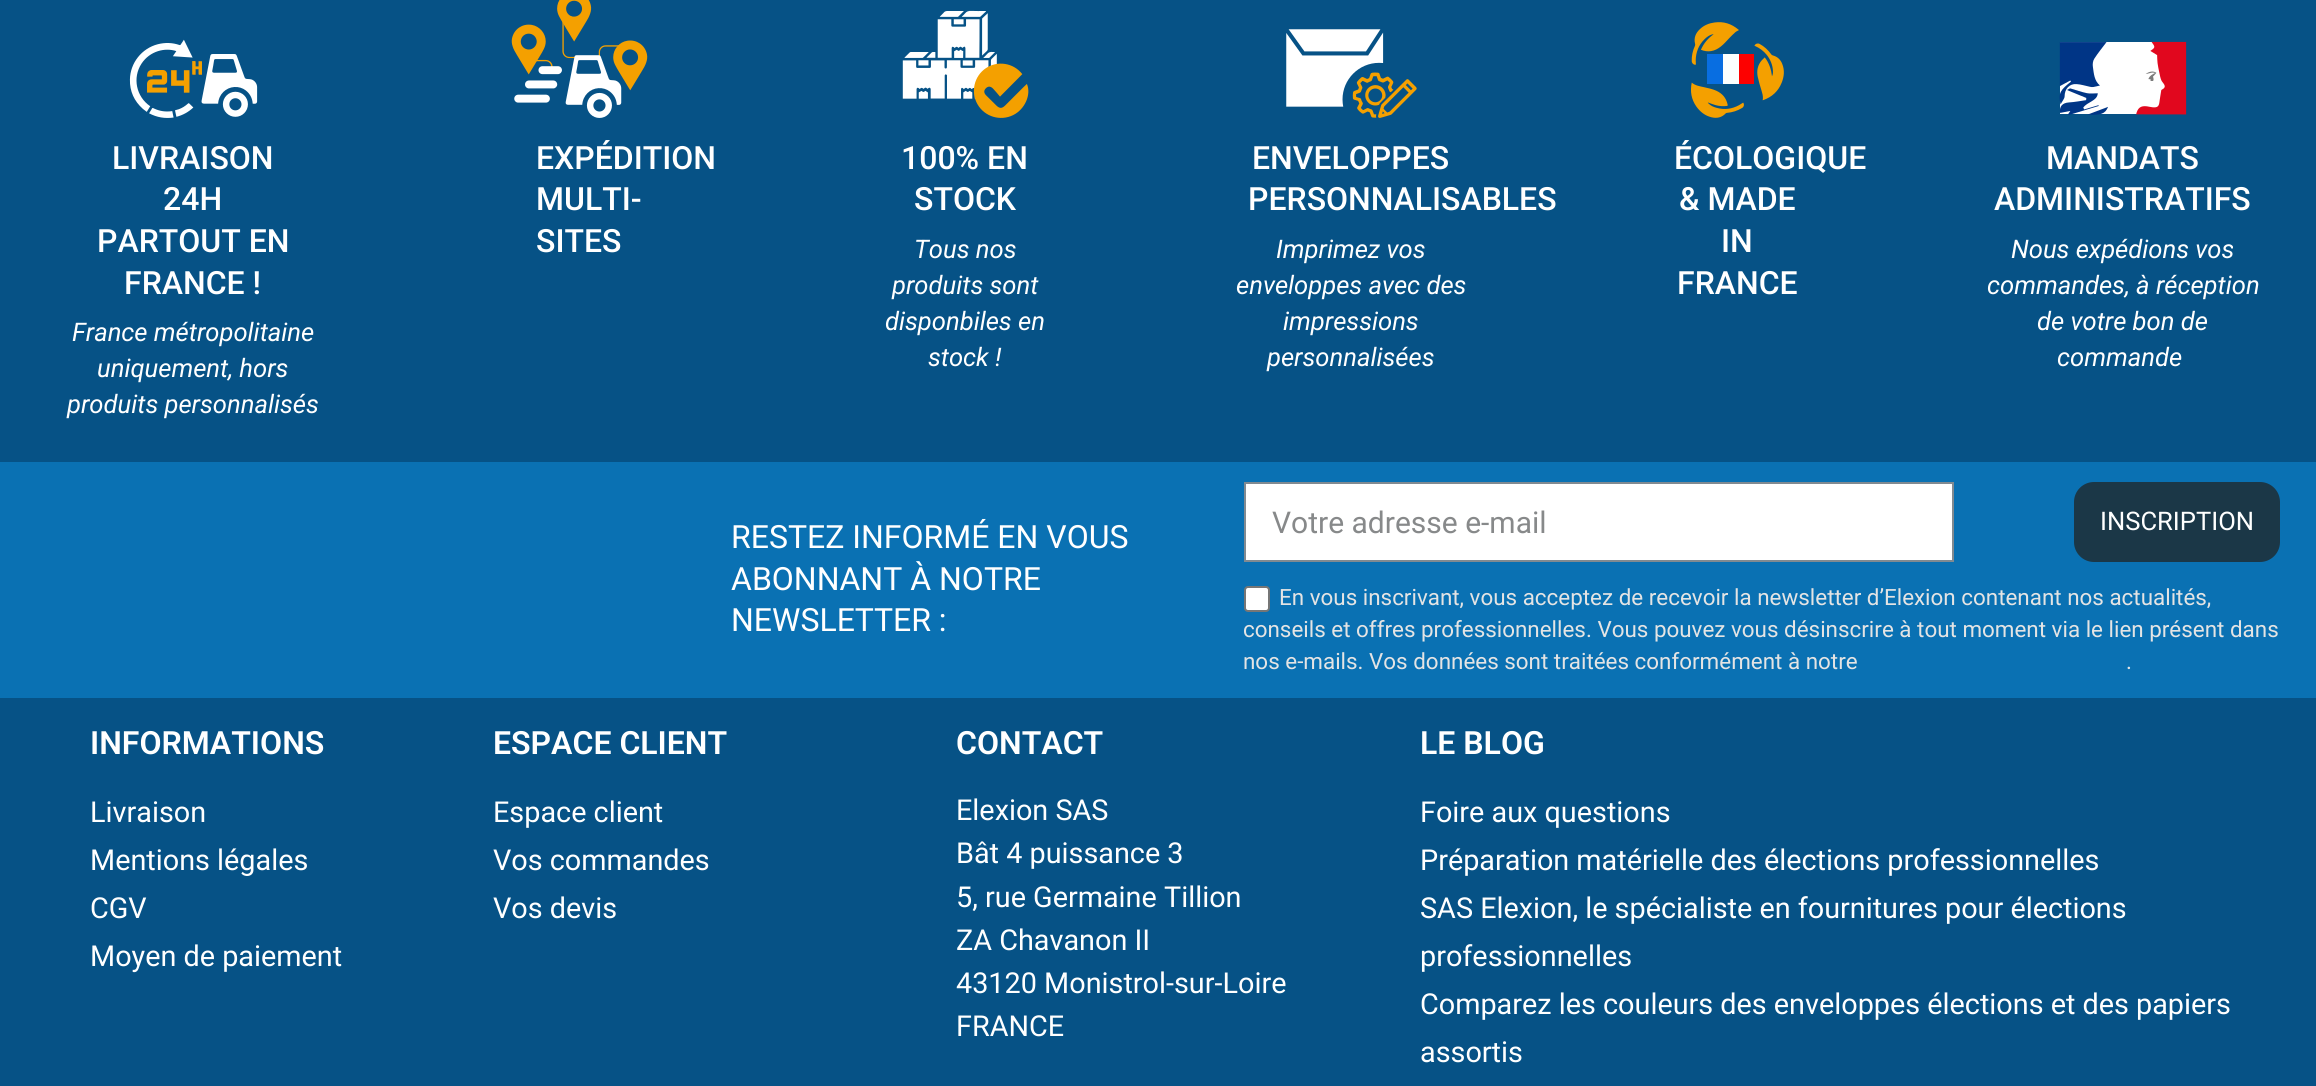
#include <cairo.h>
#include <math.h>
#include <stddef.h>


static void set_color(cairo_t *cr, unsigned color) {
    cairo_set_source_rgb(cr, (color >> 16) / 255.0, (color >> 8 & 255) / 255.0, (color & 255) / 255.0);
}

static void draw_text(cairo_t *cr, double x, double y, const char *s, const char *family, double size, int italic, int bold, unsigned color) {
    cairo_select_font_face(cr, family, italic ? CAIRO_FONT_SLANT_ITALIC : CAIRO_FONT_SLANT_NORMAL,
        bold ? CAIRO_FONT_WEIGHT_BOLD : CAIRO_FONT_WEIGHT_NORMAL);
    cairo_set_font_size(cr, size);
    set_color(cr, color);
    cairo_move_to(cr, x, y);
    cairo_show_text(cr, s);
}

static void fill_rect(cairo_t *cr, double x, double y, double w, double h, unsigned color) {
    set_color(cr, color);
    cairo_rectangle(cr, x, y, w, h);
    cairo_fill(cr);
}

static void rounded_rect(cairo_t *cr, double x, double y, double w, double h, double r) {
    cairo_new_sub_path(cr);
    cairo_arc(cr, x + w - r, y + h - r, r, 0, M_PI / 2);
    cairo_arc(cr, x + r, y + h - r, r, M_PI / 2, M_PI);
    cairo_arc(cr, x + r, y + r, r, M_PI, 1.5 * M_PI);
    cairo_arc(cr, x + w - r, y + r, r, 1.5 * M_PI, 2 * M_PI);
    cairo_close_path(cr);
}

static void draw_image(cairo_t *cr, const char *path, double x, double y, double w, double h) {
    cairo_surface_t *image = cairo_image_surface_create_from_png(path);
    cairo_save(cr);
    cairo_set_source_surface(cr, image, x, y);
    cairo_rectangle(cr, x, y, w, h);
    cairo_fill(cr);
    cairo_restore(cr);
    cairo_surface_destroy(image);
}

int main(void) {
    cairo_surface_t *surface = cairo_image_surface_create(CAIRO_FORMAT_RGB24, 2316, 1086);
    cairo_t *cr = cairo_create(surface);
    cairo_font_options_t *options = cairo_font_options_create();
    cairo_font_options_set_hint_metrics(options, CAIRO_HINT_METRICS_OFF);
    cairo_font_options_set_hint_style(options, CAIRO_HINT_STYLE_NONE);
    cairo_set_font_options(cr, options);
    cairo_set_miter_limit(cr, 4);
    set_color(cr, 0x065286);
    cairo_paint(cr);
    draw_image(cr, "assets/img1.png", 129, 39, 129, 79);
    draw_text(cr, 112, 169, "LIVRAISON", "Roboto Medium", 32, 0, 0, 0xFFFFFF);
    draw_text(cr, 163, 210, "24H", "Roboto Medium", 32, 0, 0, 0xFFFFFF);
    draw_text(cr, 97, 252, "PARTOUT EN", "Roboto Medium", 32, 0, 0, 0xFFFFFF);
    draw_text(cr, 124, 294, "FRANCE !", "Roboto Medium", 32, 0, 0, 0xFFFFFF);
    draw_text(cr, 72, 341, "France métropolitaine", "Roboto", 25.6, 1, 0, 0xFFFFFF);
    draw_text(cr, 97, 377, "uniquement, hors", "Roboto", 25.6, 1, 0, 0xFFFFFF);
    draw_text(cr, 67, 413, "produits personnalisés", "Roboto", 25.6, 1, 0, 0xFFFFFF);
    draw_image(cr, "assets/img2.png", 511, 0, 137, 118);
    draw_text(cr, 536, 169, "EXPÉDITION", "Roboto Medium", 32, 0, 0, 0xFFFFFF);
    draw_text(cr, 536, 210, "MULTI-", "Roboto Medium", 32, 0, 0, 0xFFFFFF);
    draw_text(cr, 536, 252, "SITES", "Roboto Medium", 32, 0, 0, 0xFFFFFF);
    draw_image(cr, "assets/img3.png", 902, 10, 127, 108);
    draw_text(cr, 901, 169, "100% EN", "Roboto Medium", 32, 0, 0, 0xFFFFFF);
    draw_text(cr, 914, 210, "STOCK", "Roboto Medium", 32, 0, 0, 0xFFFFFF);
    draw_text(cr, 914, 258, "Tous nos", "Roboto", 25.6, 1, 0, 0xFFFFFF);
    draw_text(cr, 892, 294, "produits sont", "Roboto", 25.6, 1, 0, 0xFFFFFF);
    draw_text(cr, 885, 330, "disponbiles en", "Roboto", 25.6, 1, 0, 0xFFFFFF);
    draw_text(cr, 928, 366, "stock !", "Roboto", 25.6, 1, 0, 0xFFFFFF);
    draw_image(cr, "assets/img4.png", 1286, 29, 131, 89);
    draw_text(cr, 1252, 169, "ENVELOPPES", "Roboto Medium", 32, 0, 0, 0xFFFFFF);
    draw_text(cr, 1248, 210, "PERSONNALISABLES", "Roboto Medium", 32, 0, 0, 0xFFFFFF);
    draw_text(cr, 1276, 258, "Imprimez vos", "Roboto", 25.6, 1, 0, 0xFFFFFF);
    draw_text(cr, 1236, 294, "enveloppes avec des", "Roboto", 25.6, 1, 0, 0xFFFFFF);
    draw_text(cr, 1283, 330, "impressions", "Roboto", 25.6, 1, 0, 0xFFFFFF);
    draw_text(cr, 1267, 366, "personnalisées", "Roboto", 25.6, 1, 0, 0xFFFFFF);
    draw_image(cr, "assets/img5.png", 1691, 22, 93, 96);
    draw_text(cr, 1674, 169, "ÉCOLOGIQUE", "Roboto Medium", 32, 0, 0, 0xFFFFFF);
    draw_text(cr, 1679, 210, "& MADE", "Roboto Medium", 32, 0, 0, 0xFFFFFF);
    draw_text(cr, 1721, 252, "IN", "Roboto Medium", 32, 0, 0, 0xFFFFFF);
    draw_text(cr, 1677, 294, "FRANCE", "Roboto Medium", 32, 0, 0, 0xFFFFFF);
    draw_image(cr, "assets/img6.png", 2059, 41, 128, 74);
    draw_text(cr, 2046, 169, "MANDATS", "Roboto Medium", 32, 0, 0, 0xFFFFFF);
    draw_text(cr, 1994, 210, "ADMINISTRATIFS", "Roboto Medium", 32, 0, 0, 0xFFFFFF);
    draw_text(cr, 2011, 258, "Nous expédions vos", "Roboto", 25.6, 1, 0, 0xFFFFFF);
    draw_text(cr, 1987, 294, "commandes, à réception", "Roboto", 25.6, 1, 0, 0xFFFFFF);
    draw_text(cr, 2037, 330, "de votre bon de", "Roboto", 25.6, 1, 0, 0xFFFFFF);
    draw_text(cr, 2057, 366, "commande", "Roboto", 25.6, 1, 0, 0xFFFFFF);
    fill_rect(cr, 0, 462, 2316, 236, 0x0A71B3);
    draw_text(cr, 731, 548, "RESTEZ INFORMÉ EN VOUS", "Roboto", 32, 0, 0, 0xFFFFFF);
    draw_text(cr, 731, 590, "ABONNANT À NOTRE", "Roboto", 32, 0, 0, 0xFFFFFF);
    draw_text(cr, 731, 631, "NEWSLETTER :", "Roboto", 32, 0, 0, 0xFFFFFF);
    cairo_rectangle(cr, 1245, 483, 708, 78);
    cairo_fill_preserve(cr);
    set_color(cr, 0x818A91);
    cairo_stroke(cr);
    draw_text(cr, 1272, 533, "Votre adresse e-mail", "Roboto", 30, 0, 0, 0x87898A);
    set_color(cr, 0x1B3747);
    rounded_rect(cr, 2074, 482, 206, 80, 20);
    cairo_fill(cr);
    draw_text(cr, 2100, 530, "INSCRIPTION", "Roboto", 25.6, 0, 0, 0xFFFFFF);
    rounded_rect(cr, 1245, 587, 24, 24, 3);
    cairo_fill_preserve(cr);
    set_color(cr, 0x767676);
    cairo_stroke(cr);
    draw_text(cr, 1279, 605, "En vous inscrivant, vous acceptez de recevoir la newsletter d’Elexion contenant nos actualités,", "Roboto", 22.4, 0, 0, 0xE4E4E4);
    draw_text(cr, 1243, 637, "conseils et offres professionnelles. Vous pouvez vous désinscrire à tout moment via le lien présent dans", "Roboto", 22.4, 0, 0, 0xE4E4E4);
    draw_text(cr, 1243, 669, "nos e-mails. Vos données sont traitées conformément à notre", "Roboto", 22.4, 0, 0, 0xE4E4E4);
    draw_text(cr, 2126, 669, ".", "Roboto", 22.4, 0, 0, 0xE4E4E4);
    draw_text(cr, 90, 754, "INFORMATIONS", "Roboto SemiBold", 32, 0, 0, 0xFFFFFF);
    draw_text(cr, 90, 822, "Livraison", "Roboto", 28.8, 0, 0, 0xFFFFFF);
    draw_text(cr, 90, 870, "Mentions légales", "Roboto", 28.8, 0, 0, 0xFFFFFF);
    draw_text(cr, 90, 918, "CGV", "Roboto", 28.8, 0, 0, 0xFFFFFF);
    draw_text(cr, 90, 966, "Moyen de paiement", "Roboto", 28.8, 0, 0, 0xFFFFFF);
    draw_text(cr, 493, 754, "ESPACE CLIENT", "Roboto SemiBold", 32, 0, 0, 0xFFFFFF);
    draw_text(cr, 493, 822, "Espace client", "Roboto", 28.8, 0, 0, 0xFFFFFF);
    draw_text(cr, 493, 870, "Vos commandes", "Roboto", 28.8, 0, 0, 0xFFFFFF);
    draw_text(cr, 493, 918, "Vos devis", "Roboto", 28.8, 0, 0, 0xFFFFFF);
    draw_text(cr, 956, 754, "CONTACT", "Roboto SemiBold", 32, 0, 0, 0xFFFFFF);
    draw_text(cr, 956, 820, "Elexion SAS", "Roboto", 28.8, 0, 0, 0xFFFFFF);
    draw_text(cr, 956, 863, "Bât 4 puissance 3", "Roboto", 28.8, 0, 0, 0xFFFFFF);
    draw_text(cr, 956, 907, "5, rue Germaine Tillion", "Roboto", 28.8, 0, 0, 0xFFFFFF);
    draw_text(cr, 956, 950, "ZA Chavanon II", "Roboto", 28.8, 0, 0, 0xFFFFFF);
    draw_text(cr, 956, 993, "43120 Monistrol-sur-Loire", "Roboto", 28.8, 0, 0, 0xFFFFFF);
    draw_text(cr, 956, 1036, "FRANCE", "Roboto", 28.8, 0, 0, 0xFFFFFF);
    draw_text(cr, 1420, 754, "LE BLOG", "Roboto SemiBold", 32, 0, 0, 0xFFFFFF);
    draw_text(cr, 1420, 822, "Foire aux questions", "Roboto", 28.8, 0, 0, 0xFFFFFF);
    draw_text(cr, 1420, 870, "Préparation matérielle des élections professionnelles", "Roboto", 28.8, 0, 0, 0xFFFFFF);
    draw_text(cr, 1420, 918, "SAS Elexion, le spécialiste en fournitures pour élections", "Roboto", 28.8, 0, 0, 0xFFFFFF);
    draw_text(cr, 1420, 966, "professionnelles", "Roboto", 28.8, 0, 0, 0xFFFFFF);
    draw_text(cr, 1420, 1014, "Comparez les couleurs des enveloppes élections et des papiers", "Roboto", 28.8, 0, 0, 0xFFFFFF);
    draw_text(cr, 1420, 1062, "assortis", "Roboto", 28.8, 0, 0, 0xFFFFFF);
    cairo_surface_write_to_png(surface, "output.png");
    cairo_font_options_destroy(options);
    cairo_destroy(cr);
    cairo_surface_destroy(surface);
    return 0;
}
